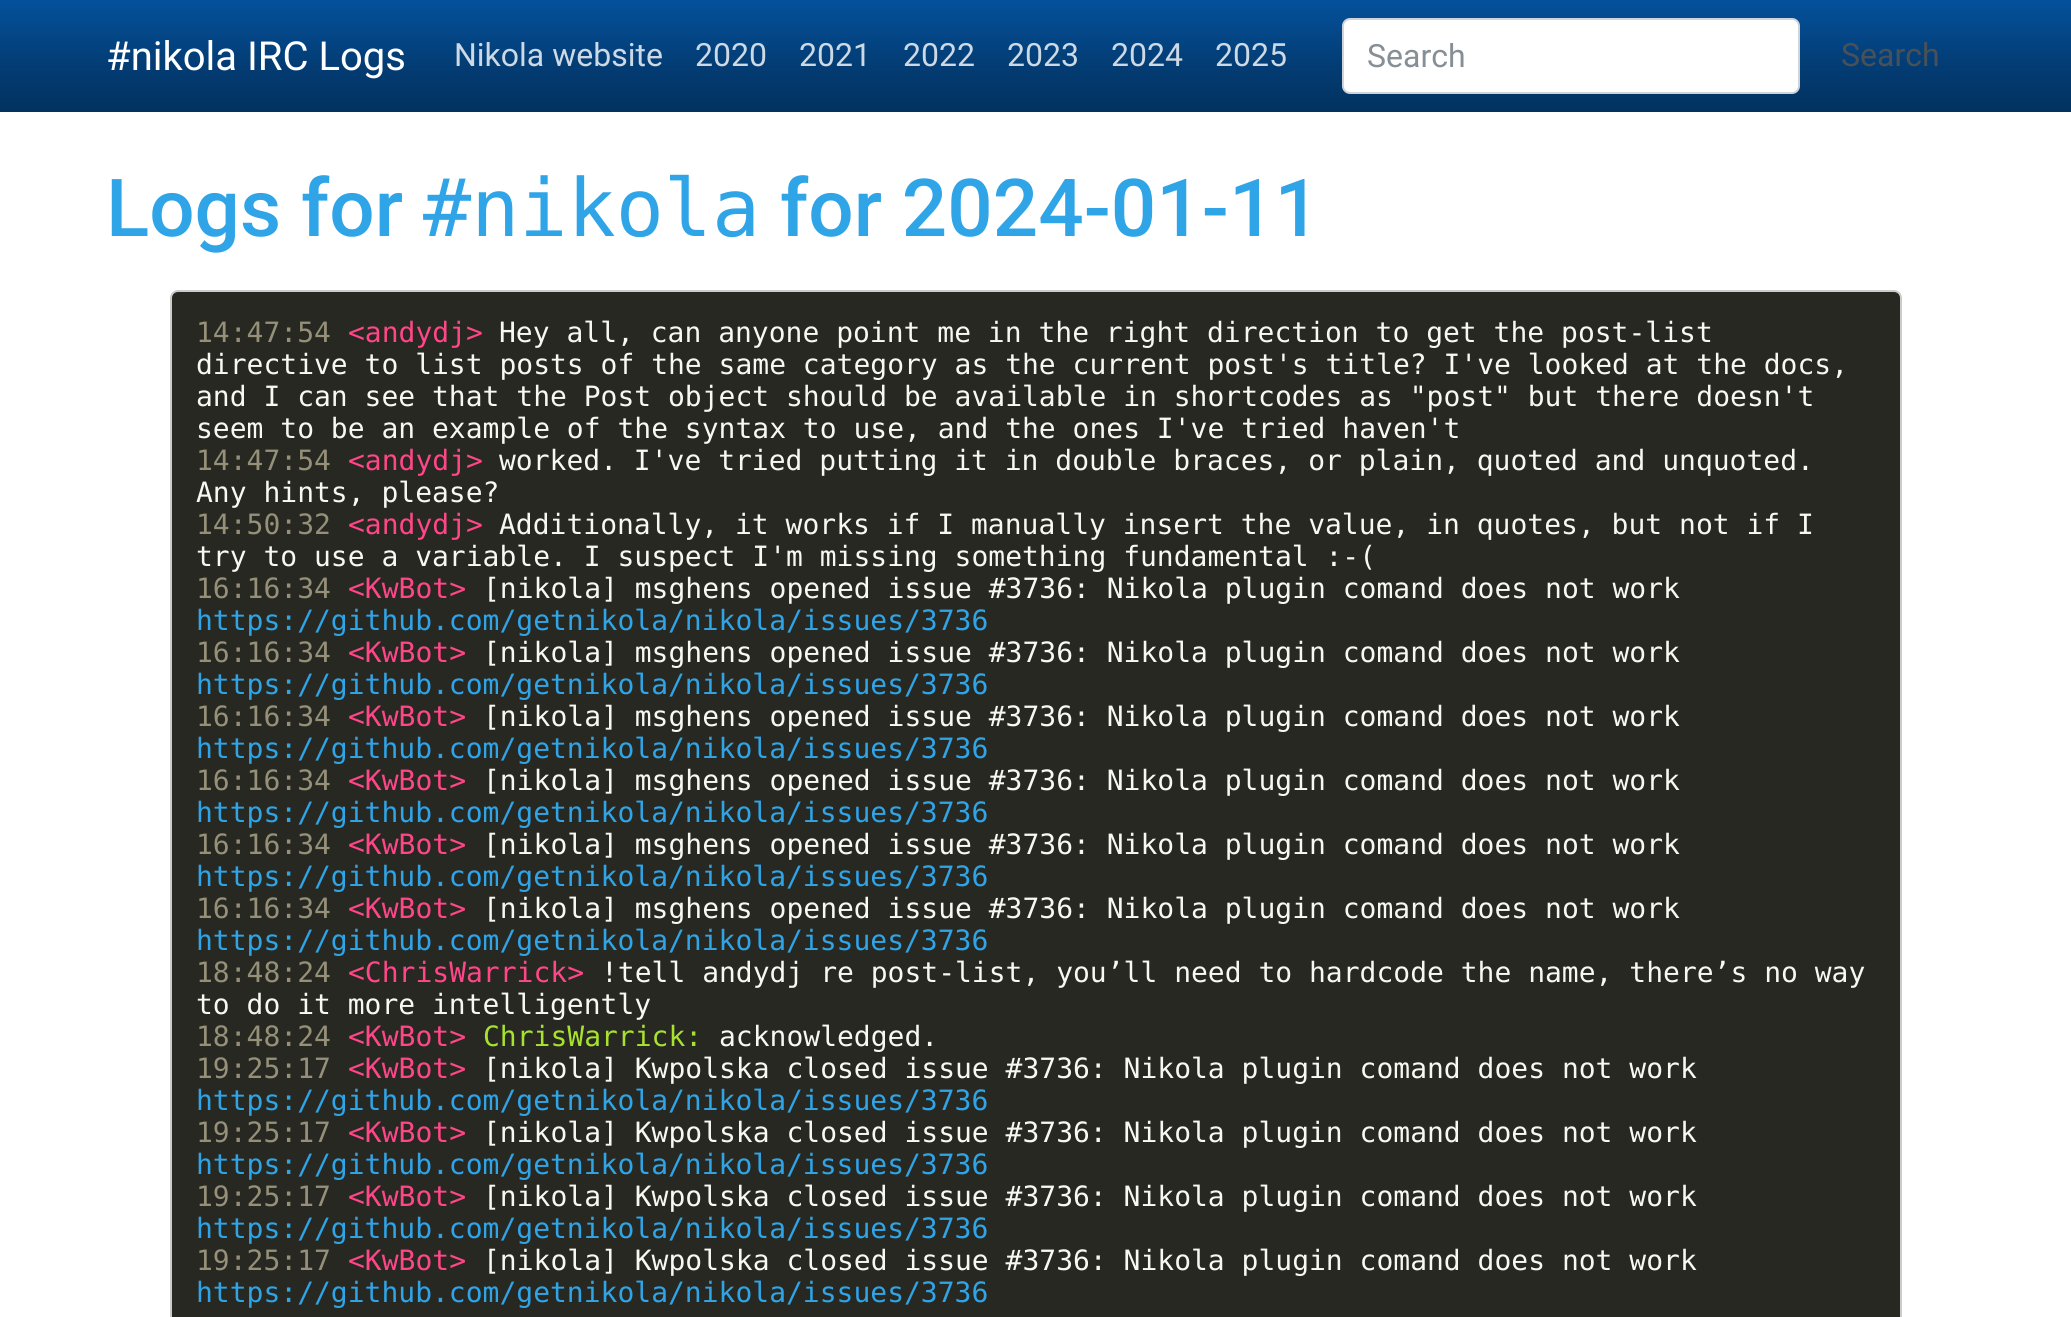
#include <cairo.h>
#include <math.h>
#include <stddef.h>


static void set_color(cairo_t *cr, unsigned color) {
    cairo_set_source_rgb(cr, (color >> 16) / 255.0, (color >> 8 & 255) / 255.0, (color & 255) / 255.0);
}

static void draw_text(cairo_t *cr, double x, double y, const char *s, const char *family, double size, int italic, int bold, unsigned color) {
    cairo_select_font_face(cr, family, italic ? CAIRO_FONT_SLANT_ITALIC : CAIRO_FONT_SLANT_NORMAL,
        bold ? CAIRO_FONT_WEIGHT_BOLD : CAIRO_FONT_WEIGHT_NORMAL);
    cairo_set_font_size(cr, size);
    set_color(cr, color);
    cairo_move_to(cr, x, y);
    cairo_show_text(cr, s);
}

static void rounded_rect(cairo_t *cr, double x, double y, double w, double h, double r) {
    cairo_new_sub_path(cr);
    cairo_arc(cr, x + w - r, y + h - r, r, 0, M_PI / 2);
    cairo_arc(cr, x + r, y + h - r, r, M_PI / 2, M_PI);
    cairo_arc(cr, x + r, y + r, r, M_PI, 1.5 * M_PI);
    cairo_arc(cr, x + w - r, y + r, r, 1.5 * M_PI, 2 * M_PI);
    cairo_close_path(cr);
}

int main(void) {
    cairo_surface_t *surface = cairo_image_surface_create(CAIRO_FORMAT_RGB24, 2071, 1317);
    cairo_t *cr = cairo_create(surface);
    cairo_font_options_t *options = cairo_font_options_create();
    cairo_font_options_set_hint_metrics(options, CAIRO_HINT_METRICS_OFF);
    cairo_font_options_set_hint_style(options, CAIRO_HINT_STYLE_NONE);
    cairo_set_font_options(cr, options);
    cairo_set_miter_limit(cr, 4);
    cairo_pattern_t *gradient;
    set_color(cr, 0xFFFFFF);
    cairo_paint(cr);
    gradient = cairo_pattern_create_linear(1036, 0, 1036, 112);
    cairo_pattern_add_color_stop_rgba(gradient, 0, 0.016, 0.318, 0.608, 1);
    cairo_pattern_add_color_stop_rgba(gradient, 0.6, 0.012, 0.235, 0.451, 1);
    cairo_pattern_add_color_stop_rgba(gradient, 1, 0.008, 0.196, 0.373, 1);
    cairo_set_source(cr, gradient);
    cairo_pattern_destroy(gradient);
    cairo_rectangle(cr, 0, 0, 2071, 112);
    cairo_fill(cr);
    draw_text(cr, 106, 70, "#nikola IRC Logs", "Roboto", 40, 0, 0, 0xFFFFFF);
    draw_text(cr, 454, 66, "Nikola website", "Roboto", 32, 0, 0, 0xCDD9E4);
    draw_text(cr, 695, 66, "2020", "Roboto", 32, 0, 0, 0xCDD9E4);
    draw_text(cr, 799, 66, "2021", "Roboto", 32, 0, 0, 0xCDD9E4);
    draw_text(cr, 903, 66, "2022", "Roboto", 32, 0, 0, 0xCDD9E4);
    draw_text(cr, 1007, 66, "2023", "Roboto", 32, 0, 0, 0xCDD9E4);
    draw_text(cr, 1111, 66, "2024", "Roboto", 32, 0, 0, 0xCDD9E4);
    draw_text(cr, 1215, 66, "2025", "Roboto", 32, 0, 0, 0xCDD9E4);
    set_color(cr, 0xFFFFFF);
    rounded_rect(cr, 1343, 19, 456, 74, 7);
    cairo_fill_preserve(cr);
    set_color(cr, 0xCED4DA);
    cairo_stroke(cr);
    draw_text(cr, 1367, 67, "Search", "Roboto", 32, 0, 0, 0x868E96);
    draw_text(cr, 1841, 66, "Search", "Roboto", 32, 0, 0, 0x495057);
    draw_text(cr, 106, 236, "Logs for", "Roboto Medium", 80, 0, 0, 0x2FA4E7);
    draw_text(cr, 423, 236, "#nikola", "DejaVu Sans Mono", 80, 0, 0, 0x2FA4E7);
    draw_text(cr, 780, 236, "for 2024-01-11", "Roboto Medium", 80, 0, 0, 0x2FA4E7);
    set_color(cr, 0x272822);
    rounded_rect(cr, 171, 291, 1730, 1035, 7);
    cairo_fill_preserve(cr);
    set_color(cr, 0xCCCCCC);
    cairo_stroke(cr);
    draw_text(cr, 196, 342, "14:47:54", "DejaVu Sans Mono", 28, 0, 0, 0x959077);
    draw_text(cr, 348, 342, "<andydj>", "DejaVu Sans Mono", 28, 0, 0, 0xFF4689);
    draw_text(cr, 499, 342, "Hey all, can anyone point me in the right direction to get the post-list", "DejaVu Sans Mono", 28, 0, 0, 0xF8F8F2);
    draw_text(cr, 196, 374, "directive to list posts of the same category as the current post's title? I've looked at the docs,", "DejaVu Sans Mono", 28, 0, 0, 0xF8F8F2);
    draw_text(cr, 196, 406, "and I can see that the Post object should be available in shortcodes as \"post\" but there doesn't", "DejaVu Sans Mono", 28, 0, 0, 0xF8F8F2);
    draw_text(cr, 196, 438, "seem to be an example of the syntax to use, and the ones I've tried haven't", "DejaVu Sans Mono", 28, 0, 0, 0xF8F8F2);
    draw_text(cr, 196, 470, "14:47:54", "DejaVu Sans Mono", 28, 0, 0, 0x959077);
    draw_text(cr, 348, 470, "<andydj>", "DejaVu Sans Mono", 28, 0, 0, 0xFF4689);
    draw_text(cr, 499, 470, "worked. I've tried putting it in double braces, or plain, quoted and unquoted.", "DejaVu Sans Mono", 28, 0, 0, 0xF8F8F2);
    draw_text(cr, 196, 502, "Any hints, please?", "DejaVu Sans Mono", 28, 0, 0, 0xF8F8F2);
    draw_text(cr, 196, 534, "14:50:32", "DejaVu Sans Mono", 28, 0, 0, 0x959077);
    draw_text(cr, 348, 534, "<andydj>", "DejaVu Sans Mono", 28, 0, 0, 0xFF4689);
    draw_text(cr, 499, 534, "Additionally, it works if I manually insert the value, in quotes, but not if I", "DejaVu Sans Mono", 28, 0, 0, 0xF8F8F2);
    draw_text(cr, 196, 566, "try to use a variable. I suspect I'm missing something fundamental :-(", "DejaVu Sans Mono", 28, 0, 0, 0xF8F8F2);
    draw_text(cr, 196, 598, "16:16:34", "DejaVu Sans Mono", 28, 0, 0, 0x959077);
    draw_text(cr, 348, 598, "<KwBot>", "DejaVu Sans Mono", 28, 0, 0, 0xFF4689);
    draw_text(cr, 483, 598, "[nikola] msghens opened issue #3736: Nikola plugin comand does not work", "DejaVu Sans Mono", 28, 0, 0, 0xF8F8F2);
    draw_text(cr, 196, 630, "https://github.com/getnikola/nikola/issues/3736", "DejaVu Sans Mono", 28, 0, 0, 0x2FA4E7);
    draw_text(cr, 196, 662, "16:16:34", "DejaVu Sans Mono", 28, 0, 0, 0x959077);
    draw_text(cr, 348, 662, "<KwBot>", "DejaVu Sans Mono", 28, 0, 0, 0xFF4689);
    draw_text(cr, 483, 662, "[nikola] msghens opened issue #3736: Nikola plugin comand does not work", "DejaVu Sans Mono", 28, 0, 0, 0xF8F8F2);
    draw_text(cr, 196, 694, "https://github.com/getnikola/nikola/issues/3736", "DejaVu Sans Mono", 28, 0, 0, 0x2FA4E7);
    draw_text(cr, 196, 726, "16:16:34", "DejaVu Sans Mono", 28, 0, 0, 0x959077);
    draw_text(cr, 348, 726, "<KwBot>", "DejaVu Sans Mono", 28, 0, 0, 0xFF4689);
    draw_text(cr, 483, 726, "[nikola] msghens opened issue #3736: Nikola plugin comand does not work", "DejaVu Sans Mono", 28, 0, 0, 0xF8F8F2);
    draw_text(cr, 196, 758, "https://github.com/getnikola/nikola/issues/3736", "DejaVu Sans Mono", 28, 0, 0, 0x2FA4E7);
    draw_text(cr, 196, 790, "16:16:34", "DejaVu Sans Mono", 28, 0, 0, 0x959077);
    draw_text(cr, 348, 790, "<KwBot>", "DejaVu Sans Mono", 28, 0, 0, 0xFF4689);
    draw_text(cr, 483, 790, "[nikola] msghens opened issue #3736: Nikola plugin comand does not work", "DejaVu Sans Mono", 28, 0, 0, 0xF8F8F2);
    draw_text(cr, 196, 822, "https://github.com/getnikola/nikola/issues/3736", "DejaVu Sans Mono", 28, 0, 0, 0x2FA4E7);
    draw_text(cr, 196, 854, "16:16:34", "DejaVu Sans Mono", 28, 0, 0, 0x959077);
    draw_text(cr, 348, 854, "<KwBot>", "DejaVu Sans Mono", 28, 0, 0, 0xFF4689);
    draw_text(cr, 483, 854, "[nikola] msghens opened issue #3736: Nikola plugin comand does not work", "DejaVu Sans Mono", 28, 0, 0, 0xF8F8F2);
    draw_text(cr, 196, 886, "https://github.com/getnikola/nikola/issues/3736", "DejaVu Sans Mono", 28, 0, 0, 0x2FA4E7);
    draw_text(cr, 196, 918, "16:16:34", "DejaVu Sans Mono", 28, 0, 0, 0x959077);
    draw_text(cr, 348, 918, "<KwBot>", "DejaVu Sans Mono", 28, 0, 0, 0xFF4689);
    draw_text(cr, 483, 918, "[nikola] msghens opened issue #3736: Nikola plugin comand does not work", "DejaVu Sans Mono", 28, 0, 0, 0xF8F8F2);
    draw_text(cr, 196, 950, "https://github.com/getnikola/nikola/issues/3736", "DejaVu Sans Mono", 28, 0, 0, 0x2FA4E7);
    draw_text(cr, 196, 982, "18:48:24", "DejaVu Sans Mono", 28, 0, 0, 0x959077);
    draw_text(cr, 348, 982, "<ChrisWarrick>", "DejaVu Sans Mono", 28, 0, 0, 0xFF4689);
    draw_text(cr, 601, 982, "!tell andydj re post-list, you’ll need to hardcode the name, there’s no way", "DejaVu Sans Mono", 28, 0, 0, 0xF8F8F2);
    draw_text(cr, 196, 1014, "to do it more intelligently", "DejaVu Sans Mono", 28, 0, 0, 0xF8F8F2);
    draw_text(cr, 196, 1046, "18:48:24", "DejaVu Sans Mono", 28, 0, 0, 0x959077);
    draw_text(cr, 348, 1046, "<KwBot>", "DejaVu Sans Mono", 28, 0, 0, 0xFF4689);
    draw_text(cr, 483, 1046, "ChrisWarrick:", "DejaVu Sans Mono", 28, 0, 0, 0xA6E22E);
    draw_text(cr, 719, 1046, "acknowledged.", "DejaVu Sans Mono", 28, 0, 0, 0xF8F8F2);
    draw_text(cr, 196, 1078, "19:25:17", "DejaVu Sans Mono", 28, 0, 0, 0x959077);
    draw_text(cr, 348, 1078, "<KwBot>", "DejaVu Sans Mono", 28, 0, 0, 0xFF4689);
    draw_text(cr, 483, 1078, "[nikola] Kwpolska closed issue #3736: Nikola plugin comand does not work", "DejaVu Sans Mono", 28, 0, 0, 0xF8F8F2);
    draw_text(cr, 196, 1110, "https://github.com/getnikola/nikola/issues/3736", "DejaVu Sans Mono", 28, 0, 0, 0x2FA4E7);
    draw_text(cr, 196, 1142, "19:25:17", "DejaVu Sans Mono", 28, 0, 0, 0x959077);
    draw_text(cr, 348, 1142, "<KwBot>", "DejaVu Sans Mono", 28, 0, 0, 0xFF4689);
    draw_text(cr, 483, 1142, "[nikola] Kwpolska closed issue #3736: Nikola plugin comand does not work", "DejaVu Sans Mono", 28, 0, 0, 0xF8F8F2);
    draw_text(cr, 196, 1174, "https://github.com/getnikola/nikola/issues/3736", "DejaVu Sans Mono", 28, 0, 0, 0x2FA4E7);
    draw_text(cr, 196, 1206, "19:25:17", "DejaVu Sans Mono", 28, 0, 0, 0x959077);
    draw_text(cr, 348, 1206, "<KwBot>", "DejaVu Sans Mono", 28, 0, 0, 0xFF4689);
    draw_text(cr, 483, 1206, "[nikola] Kwpolska closed issue #3736: Nikola plugin comand does not work", "DejaVu Sans Mono", 28, 0, 0, 0xF8F8F2);
    draw_text(cr, 196, 1238, "https://github.com/getnikola/nikola/issues/3736", "DejaVu Sans Mono", 28, 0, 0, 0x2FA4E7);
    draw_text(cr, 196, 1270, "19:25:17", "DejaVu Sans Mono", 28, 0, 0, 0x959077);
    draw_text(cr, 348, 1270, "<KwBot>", "DejaVu Sans Mono", 28, 0, 0, 0xFF4689);
    draw_text(cr, 483, 1270, "[nikola] Kwpolska closed issue #3736: Nikola plugin comand does not work", "DejaVu Sans Mono", 28, 0, 0, 0xF8F8F2);
    draw_text(cr, 196, 1302, "https://github.com/getnikola/nikola/issues/3736", "DejaVu Sans Mono", 28, 0, 0, 0x2FA4E7);
    cairo_surface_write_to_png(surface, "output.png");
    cairo_font_options_destroy(options);
    cairo_destroy(cr);
    cairo_surface_destroy(surface);
    return 0;
}
